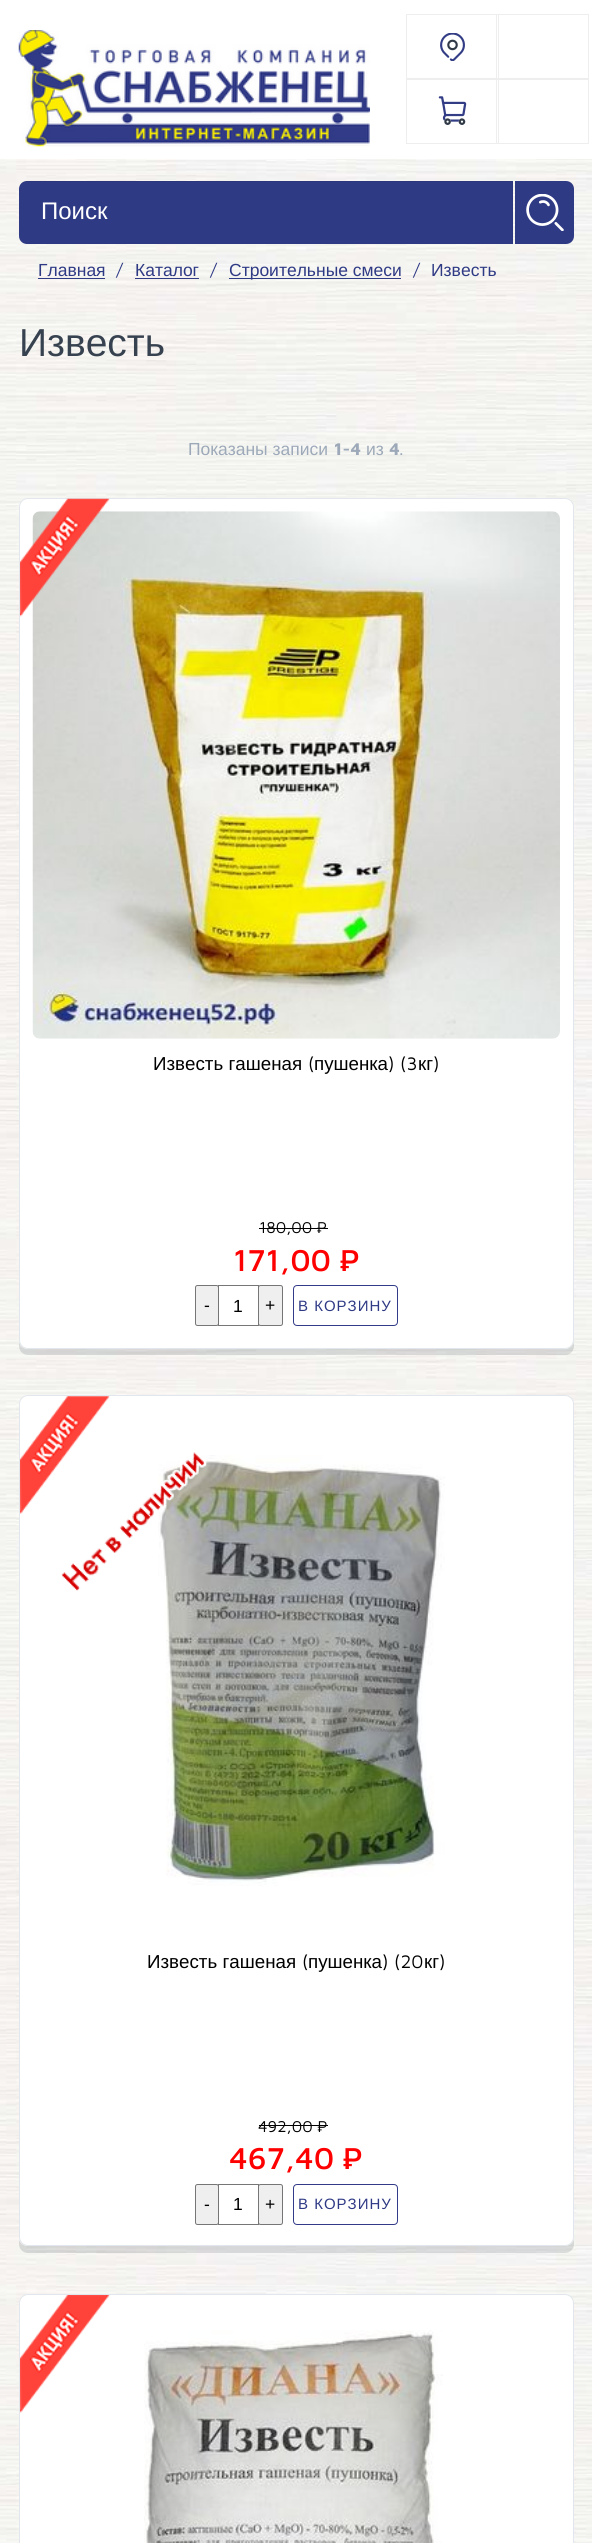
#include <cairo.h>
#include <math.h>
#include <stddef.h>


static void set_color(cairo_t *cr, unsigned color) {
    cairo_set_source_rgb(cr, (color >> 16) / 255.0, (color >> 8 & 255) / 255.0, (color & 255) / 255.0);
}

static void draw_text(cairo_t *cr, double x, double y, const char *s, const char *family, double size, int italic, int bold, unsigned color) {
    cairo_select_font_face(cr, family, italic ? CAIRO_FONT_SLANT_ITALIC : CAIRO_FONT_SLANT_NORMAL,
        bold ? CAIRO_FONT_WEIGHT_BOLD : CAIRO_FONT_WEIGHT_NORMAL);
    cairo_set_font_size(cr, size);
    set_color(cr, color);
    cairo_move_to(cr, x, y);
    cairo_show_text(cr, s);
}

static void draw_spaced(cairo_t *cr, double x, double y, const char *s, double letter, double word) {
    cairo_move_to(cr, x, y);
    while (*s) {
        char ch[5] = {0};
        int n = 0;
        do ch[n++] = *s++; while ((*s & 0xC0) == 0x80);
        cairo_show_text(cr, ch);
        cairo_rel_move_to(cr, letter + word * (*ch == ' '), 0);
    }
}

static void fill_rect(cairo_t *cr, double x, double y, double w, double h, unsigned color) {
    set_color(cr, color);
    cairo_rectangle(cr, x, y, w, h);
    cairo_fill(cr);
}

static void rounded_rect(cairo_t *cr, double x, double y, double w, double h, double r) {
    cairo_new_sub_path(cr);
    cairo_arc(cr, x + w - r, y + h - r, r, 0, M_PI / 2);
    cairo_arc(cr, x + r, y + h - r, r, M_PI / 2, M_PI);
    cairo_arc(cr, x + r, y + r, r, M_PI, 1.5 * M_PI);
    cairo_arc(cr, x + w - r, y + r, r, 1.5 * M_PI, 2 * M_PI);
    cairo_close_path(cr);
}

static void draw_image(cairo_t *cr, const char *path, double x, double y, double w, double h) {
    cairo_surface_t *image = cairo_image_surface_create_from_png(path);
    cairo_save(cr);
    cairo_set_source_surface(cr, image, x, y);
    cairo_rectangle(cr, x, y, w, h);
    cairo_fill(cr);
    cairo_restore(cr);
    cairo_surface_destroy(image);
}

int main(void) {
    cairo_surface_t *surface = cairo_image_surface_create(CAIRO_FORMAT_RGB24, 592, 2543);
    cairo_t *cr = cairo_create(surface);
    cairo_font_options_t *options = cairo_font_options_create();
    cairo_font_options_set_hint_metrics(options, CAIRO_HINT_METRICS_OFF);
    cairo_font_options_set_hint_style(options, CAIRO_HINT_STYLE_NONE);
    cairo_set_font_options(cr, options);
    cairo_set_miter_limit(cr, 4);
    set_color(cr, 0xFFFFFF);
    cairo_paint(cr);
    draw_image(cr, "assets/img1.png", 0, 159, 592, 2384);
    draw_image(cr, "assets/img2.png", 18, 30, 352, 117);
    draw_image(cr, "assets/img3.png", 440, 33, 25, 28);
    cairo_rectangle(cr, 406.5, 14.5, 92, 65);
    set_color(cr, 0xEEEEEE);
    cairo_set_line_width(cr, 1);
    cairo_stroke(cr);
    draw_image(cr, "assets/img4.png", 438, 96, 29, 29);
    cairo_rectangle(cr, 406.5, 78.5, 92, 65);
    cairo_stroke(cr);
    cairo_rectangle(cr, 496.5, 14.5, 92, 65);
    cairo_stroke(cr);
    cairo_rectangle(cr, 496.5, 78.5, 92, 65);
    cairo_stroke(cr);
    set_color(cr, 0x2F3A85);
    cairo_new_path(cr);
    cairo_move_to(cr, 27, 181);
    cairo_line_to(cr, 513, 181);
    cairo_line_to(cr, 513, 244);
    cairo_line_to(cr, 27, 244);
    cairo_curve_to(cr, 22.5, 244, 19, 240.5, 19, 236);
    cairo_line_to(cr, 19, 189);
    cairo_curve_to(cr, 19, 184.5, 22.5, 181, 27, 181);
    cairo_close_path(cr);
    cairo_fill(cr);
    cairo_set_source_rgba(cr, 0, 0, 0, 0.07);
    cairo_new_path(cr);
    cairo_move_to(cr, 26, 182);
    cairo_line_to(cr, 512, 182);
    cairo_line_to(cr, 512, 244);
    cairo_line_to(cr, 513, 244);
    cairo_line_to(cr, 513, 181);
    cairo_line_to(cr, 27, 181);
    cairo_curve_to(cr, 22, 181, 19, 185, 19, 190);
    cairo_curve_to(cr, 19, 186, 22, 182, 26, 182);
    cairo_close_path(cr);
    cairo_fill(cr);
    draw_text(cr, 41, 219, "Поиск", "Liberation Sans", 24, 0, 0, 0xFFFFFF);
    set_color(cr, 0x2F3A85);
    cairo_new_path(cr);
    cairo_move_to(cr, 515, 181);
    cairo_line_to(cr, 566, 181);
    cairo_curve_to(cr, 570.5, 181, 574, 184.5, 574, 189);
    cairo_line_to(cr, 574, 236);
    cairo_curve_to(cr, 574, 240.5, 570.5, 244, 566, 244);
    cairo_line_to(cr, 515, 244);
    cairo_close_path(cr);
    cairo_fill(cr);
    draw_image(cr, "assets/img5.png", 526, 194, 38, 37);
    draw_text(cr, 38, 276, "Главная", "Liberation Sans", 17.5, 0, 0, 0x2F3A85);
    fill_rect(cr, 38, 278, 67, 1, 0x2F3A85);
    draw_text(cr, 116, 276, "/", "Maven Pro", 17.5, 0, 0, 0x2F3A85);
    draw_text(cr, 135, 276, "Каталог", "Liberation Sans", 17.5, 0, 0, 0x2F3A85);
    fill_rect(cr, 135, 278, 64, 1, 0x2F3A85);
    draw_text(cr, 210, 276, "/", "Maven Pro", 17.5, 0, 0, 0x2F3A85);
    fill_rect(cr, 229, 278, 172, 1, 0x2F3A85);
    draw_text(cr, 229, 276, "Строительные смеси", "Liberation Sans", 17.5, 0, 0, 0x2F3A85);
    draw_text(cr, 413, 276, "/", "Maven Pro", 17.5, 0, 0, 0x2F3A85);
    draw_text(cr, 431, 276, "Известь", "Liberation Sans", 17.5, 0, 0, 0x2F3A85);
    draw_text(cr, 19, 356, "Известь", "Liberation Sans", 39, 0, 0, 0x374250);
    draw_text(cr, 188, 455, "Показаны записи", "Liberation Sans", 17.5, 0, 0, 0x9DA9B9);
    draw_text(cr, 334, 455, "1-4", "Maven Pro", 17.5, 0, 1, 0x9DA9B9);
    draw_text(cr, 366, 455, "из", "Liberation Sans", 17.5, 0, 0, 0x9DA9B9);
    draw_text(cr, 389, 455, "4", "Maven Pro", 17.5, 0, 1, 0x9DA9B9);
    draw_text(cr, 399, 455, ".", "Maven Pro", 17.5, 0, 0, 0x9DA9B9);
    cairo_set_source_rgba(cr, 0.18, 0.22, 0.275, 0.15);
    cairo_new_path(cr);
    cairo_move_to(cr, 19, 1342);
    cairo_line_to(cr, 19, 1346);
    cairo_curve_to(cr, 19, 1351, 23, 1355, 28, 1355);
    cairo_line_to(cr, 565, 1355);
    cairo_curve_to(cr, 570, 1355, 574, 1351, 574, 1346);
    cairo_line_to(cr, 574, 511);
    cairo_line_to(cr, 574, 1340);
    cairo_curve_to(cr, 574, 1345, 570, 1349, 565, 1349);
    cairo_line_to(cr, 28, 1349);
    cairo_curve_to(cr, 23, 1349, 20, 1346, 19, 1342);
    cairo_close_path(cr);
    cairo_fill(cr);
    set_color(cr, 0xFFFFFF);
    rounded_rect(cr, 19.5, 498.5, 554, 850, 8.5);
    cairo_fill_preserve(cr);
    set_color(cr, 0xE1E7EC);
    cairo_stroke(cr);
    draw_image(cr, "assets/img7.png", 32, 511, 528, 528);
    draw_image(cr, "assets/img6.png", 20, 498, 90, 119);
    draw_text(cr, 153, 1070, "Известь гашеная", "Liberation Sans", 18.75, 0, 0, 0x000000);
    draw_text(cr, 308, 1070, "(", "Maven Pro", 18.75, 0, 0, 0x000000);
    draw_text(cr, 314, 1070, "пушенка", "Liberation Sans", 18.75, 0, 0, 0x000000);
    draw_text(cr, 388, 1070, ") (3", "Maven Pro", 18.75, 0, 0, 0x000000);
    draw_text(cr, 418, 1070, "кг", "Liberation Sans", 18.75, 0, 0, 0x000000);
    draw_text(cr, 433, 1070, ")", "Maven Pro", 18.75, 0, 0, 0x000000);
    draw_text(cr, 259, 1233, "180,00 ₽", "Maven Pro", 16.25, 0, 0, 0x000000);
    fill_rect(cr, 259, 1228, 69, 1, 0x000000);
    draw_text(cr, 233, 1271, "171,00 ₽", "Maven Pro Medium", 31.25, 0, 0, 0xFF0000);
    set_color(cr, 0xEFEFEF);
    rounded_rect(cr, 195.5, 1285.5, 23, 40, 2);
    cairo_fill_preserve(cr);
    set_color(cr, 0x767676);
    cairo_stroke(cr);
    draw_text(cr, 204, 1311, "-", "Liberation Sans", 17.5, 0, 0, 0x000000);
    set_color(cr, 0xEFEFEF);
    rounded_rect(cr, 258.5, 1285.5, 24, 40, 2);
    cairo_fill_preserve(cr);
    set_color(cr, 0x767676);
    cairo_stroke(cr);
    cairo_rectangle(cr, 218.5, 1285.5, 40, 40);
    cairo_stroke(cr);
    draw_text(cr, 233, 1312, "1", "Liberation Sans", 17.5, 0, 0, 0x000000);
    draw_text(cr, 265, 1311, "+", "Liberation Sans", 17.5, 0, 0, 0x000000);
    rounded_rect(cr, 293.5, 1285.5, 104, 40, 3.5);
    set_color(cr, 0x323B87);
    cairo_stroke(cr);
    cairo_set_font_size(cr, 15);
    set_color(cr, 0x2F3A85);
    draw_spaced(cr, 298, 1311, "В КОРЗИНУ", 1, 0);
    cairo_set_source_rgba(cr, 0.18, 0.22, 0.275, 0.15);
    cairo_new_path(cr);
    cairo_move_to(cr, 19, 2240);
    cairo_line_to(cr, 19, 2244);
    cairo_curve_to(cr, 19, 2249, 23, 2253, 28, 2253);
    cairo_line_to(cr, 565, 2253);
    cairo_curve_to(cr, 570, 2253, 574, 2249, 574, 2244);
    cairo_line_to(cr, 574, 1408);
    cairo_line_to(cr, 574, 2238);
    cairo_curve_to(cr, 574, 2242, 570, 2246, 565, 2246);
    cairo_line_to(cr, 28, 2246);
    cairo_curve_to(cr, 23, 2246, 20, 2243, 19, 2240);
    cairo_close_path(cr);
    cairo_fill(cr);
    set_color(cr, 0xFFFFFF);
    rounded_rect(cr, 19.5, 1395.5, 554, 850, 8.5);
    cairo_fill_preserve(cr);
    set_color(cr, 0xE1E7EC);
    cairo_stroke(cr);
    draw_image(cr, "assets/img8.png", 20, 1396, 90, 118);
    draw_image(cr, "assets/img10.png", 158, 1455, 287, 431);
    draw_image(cr, "assets/img9.png", 61, 1452, 146, 139);
    draw_text(cr, 147, 1968, "Известь гашеная", "Liberation Sans", 18.75, 0, 0, 0x000000);
    draw_text(cr, 302, 1968, "(", "Maven Pro", 18.75, 0, 0, 0x000000);
    draw_text(cr, 308, 1968, "пушенка", "Liberation Sans", 18.75, 0, 0, 0x000000);
    draw_text(cr, 382, 1968, ") (20", "Maven Pro", 18.75, 0, 0, 0x000000);
    draw_text(cr, 424, 1968, "кг", "Liberation Sans", 18.75, 0, 0, 0x000000);
    draw_text(cr, 439, 1968, ")", "Maven Pro", 18.75, 0, 0, 0x000000);
    draw_text(cr, 258, 2132, "492,00 ₽", "Maven Pro", 16.25, 0, 0, 0x000000);
    fill_rect(cr, 259, 2125, 69, 1, 0x000000);
    draw_text(cr, 229, 2169, "467,40 ₽", "Maven Pro Medium", 31.25, 0, 0, 0xFF0000);
    set_color(cr, 0xEFEFEF);
    rounded_rect(cr, 195.5, 2184.5, 23, 40, 2);
    cairo_fill_preserve(cr);
    set_color(cr, 0x767676);
    cairo_stroke(cr);
    draw_text(cr, 204, 2210, "-", "Liberation Sans", 17.5, 0, 0, 0x000000);
    set_color(cr, 0xEFEFEF);
    rounded_rect(cr, 258.5, 2184.5, 24, 40, 2);
    cairo_fill_preserve(cr);
    set_color(cr, 0x767676);
    cairo_stroke(cr);
    cairo_rectangle(cr, 218.5, 2184.5, 40, 40);
    cairo_stroke(cr);
    draw_text(cr, 233, 2210, "1", "Liberation Sans", 17.5, 0, 0, 0x000000);
    draw_text(cr, 265, 2210, "+", "Liberation Sans", 17.5, 0, 0, 0x000000);
    rounded_rect(cr, 293.5, 2184.5, 104, 40, 3.5);
    set_color(cr, 0x323B87);
    cairo_stroke(cr);
    cairo_set_font_size(cr, 15);
    set_color(cr, 0x2F3A85);
    draw_spaced(cr, 298, 2209, "В КОРЗИНУ", 1, 0);
    set_color(cr, 0xFFFFFF);
    rounded_rect(cr, 19.5, 2294.5, 554, 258, 8.5);
    cairo_fill_preserve(cr);
    set_color(cr, 0xE1E7EC);
    cairo_stroke(cr);
    draw_image(cr, "assets/img11.png", 20, 2295, 90, 118);
    draw_image(cr, "assets/img12.png", 144, 2330, 299, 213);
    cairo_surface_write_to_png(surface, "output.png");
    cairo_font_options_destroy(options);
    cairo_destroy(cr);
    cairo_surface_destroy(surface);
    return 0;
}
